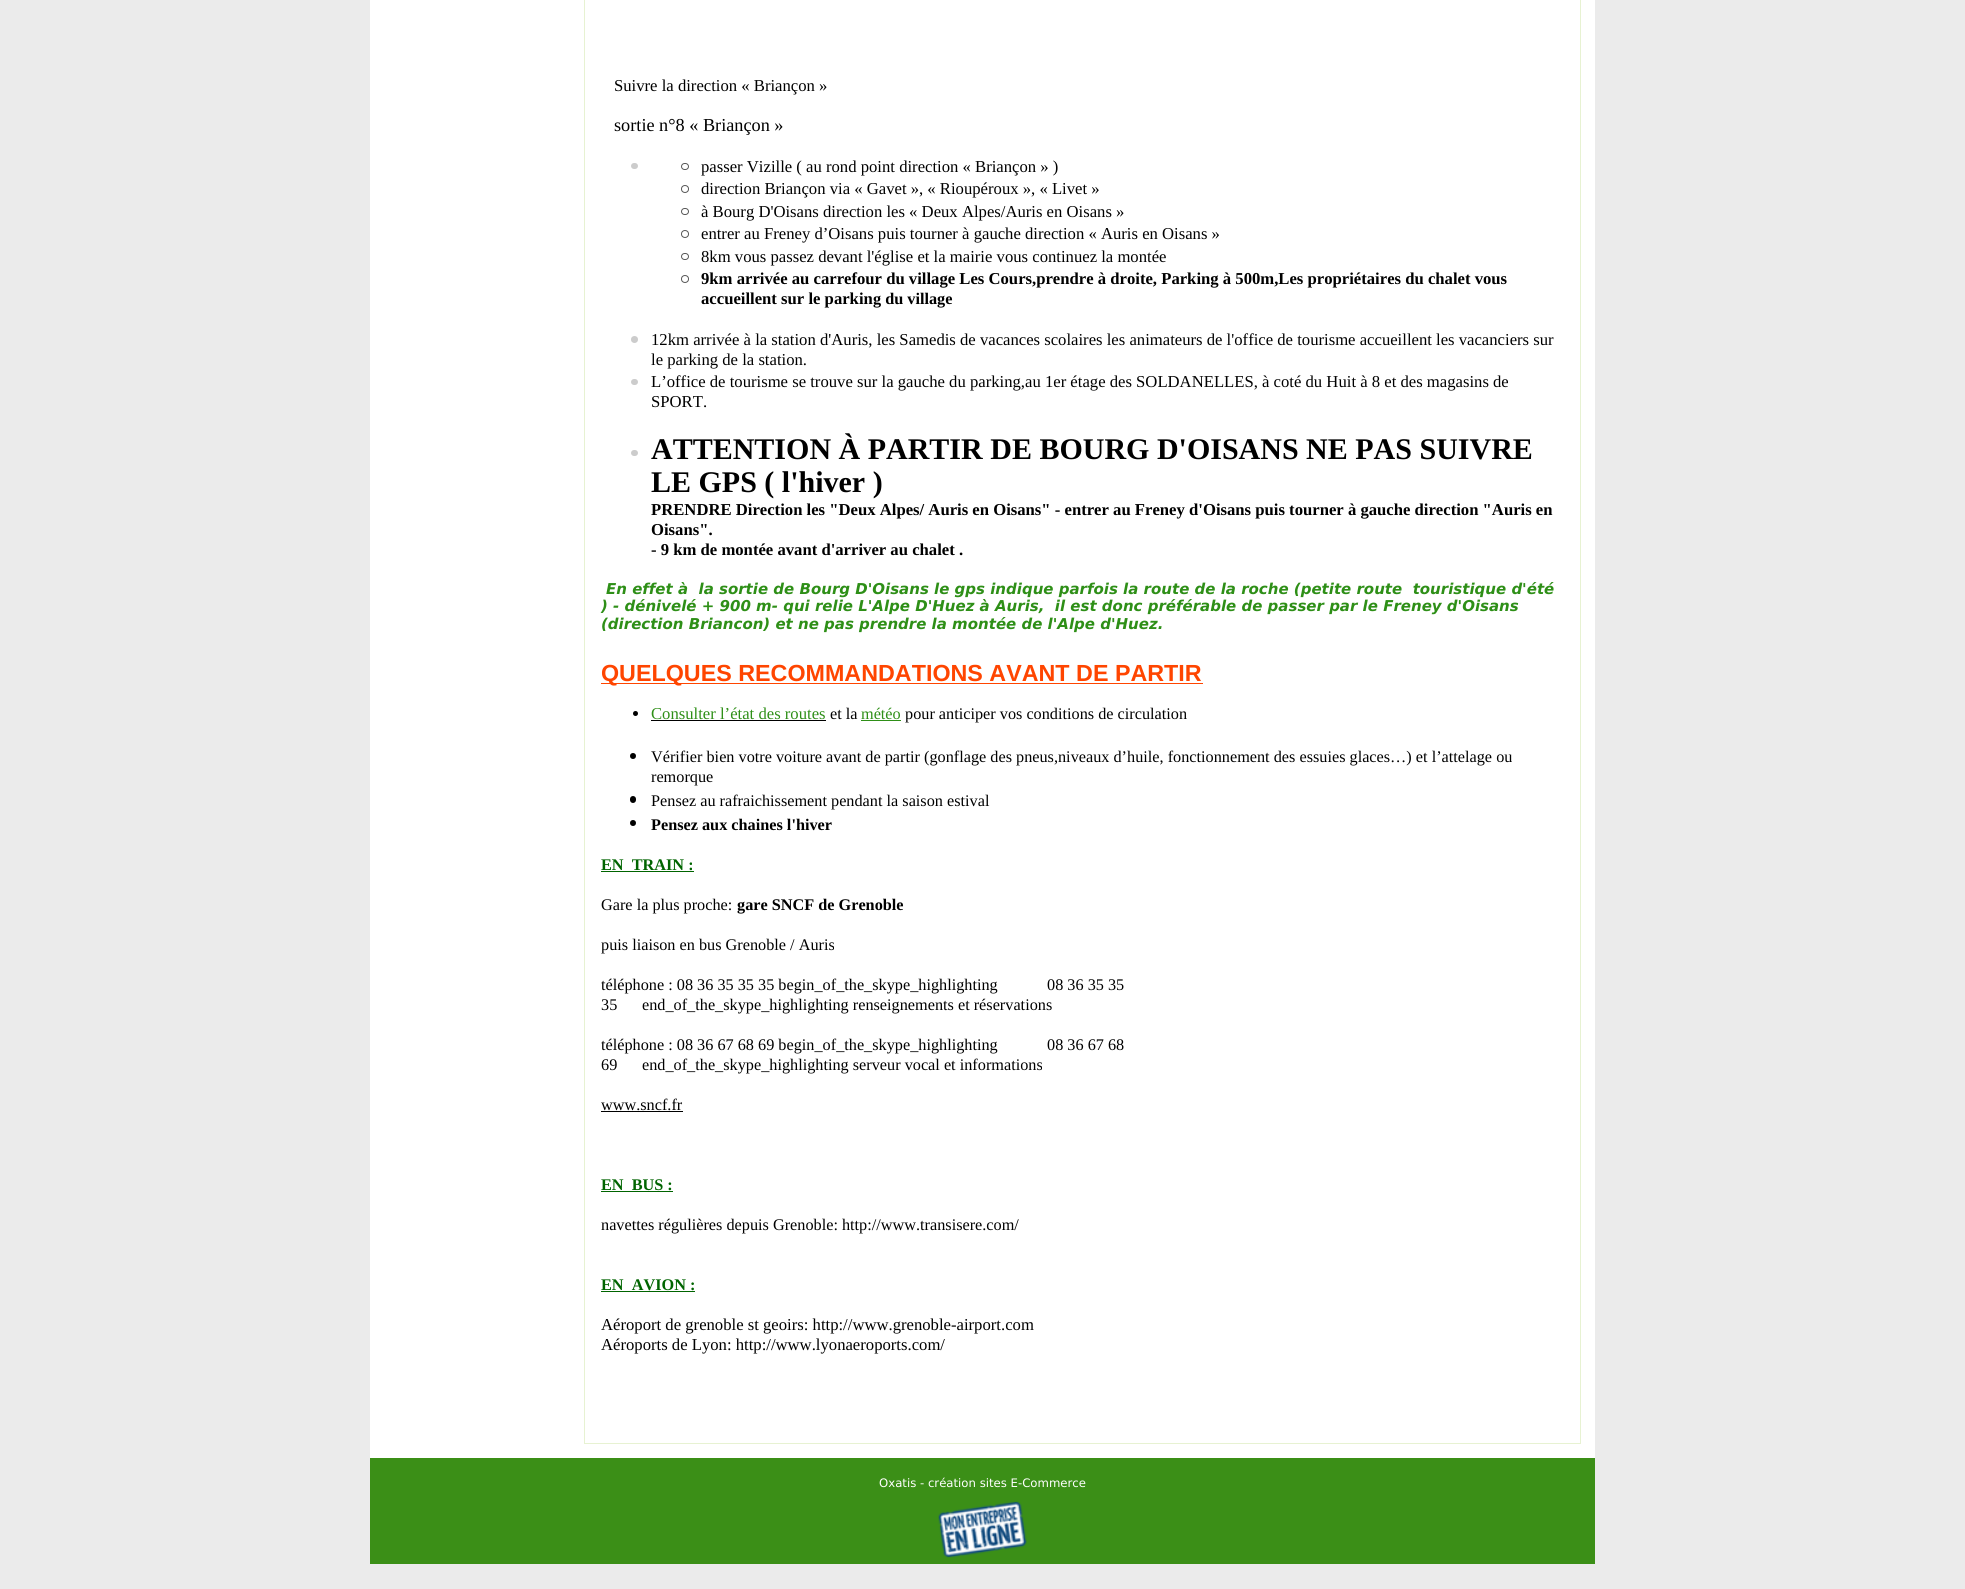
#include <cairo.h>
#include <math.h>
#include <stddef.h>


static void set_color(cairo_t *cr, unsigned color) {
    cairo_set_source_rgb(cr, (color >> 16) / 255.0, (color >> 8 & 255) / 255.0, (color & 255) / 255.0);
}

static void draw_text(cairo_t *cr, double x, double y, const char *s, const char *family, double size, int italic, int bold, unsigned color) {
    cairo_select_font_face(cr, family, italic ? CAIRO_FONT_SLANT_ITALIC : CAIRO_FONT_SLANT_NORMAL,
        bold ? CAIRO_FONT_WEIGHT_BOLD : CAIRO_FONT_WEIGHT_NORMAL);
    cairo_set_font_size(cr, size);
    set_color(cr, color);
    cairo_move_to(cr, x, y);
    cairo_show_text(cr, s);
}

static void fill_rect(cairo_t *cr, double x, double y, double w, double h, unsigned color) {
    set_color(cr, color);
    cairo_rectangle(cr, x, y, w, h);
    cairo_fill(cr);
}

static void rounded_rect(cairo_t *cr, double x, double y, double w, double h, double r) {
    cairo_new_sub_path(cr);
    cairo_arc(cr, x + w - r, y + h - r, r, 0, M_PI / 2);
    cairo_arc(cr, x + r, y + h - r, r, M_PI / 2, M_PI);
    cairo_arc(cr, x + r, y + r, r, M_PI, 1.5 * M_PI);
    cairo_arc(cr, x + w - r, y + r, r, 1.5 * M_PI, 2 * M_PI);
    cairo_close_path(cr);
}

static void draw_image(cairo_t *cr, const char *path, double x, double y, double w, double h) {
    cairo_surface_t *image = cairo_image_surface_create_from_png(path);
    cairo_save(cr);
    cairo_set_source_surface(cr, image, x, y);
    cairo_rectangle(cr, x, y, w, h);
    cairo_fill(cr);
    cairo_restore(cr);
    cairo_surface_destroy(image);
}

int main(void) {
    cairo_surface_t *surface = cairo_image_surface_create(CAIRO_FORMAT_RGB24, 1965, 1589);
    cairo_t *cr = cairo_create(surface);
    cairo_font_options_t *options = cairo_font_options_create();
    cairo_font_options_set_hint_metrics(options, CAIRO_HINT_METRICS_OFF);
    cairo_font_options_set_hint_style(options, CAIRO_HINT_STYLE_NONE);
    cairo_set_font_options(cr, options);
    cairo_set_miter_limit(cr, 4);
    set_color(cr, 0xEBEBEB);
    cairo_paint(cr);
    fill_rect(cr, 370, 0, 1225, 1458, 0xFFFFFF);
    cairo_rectangle(cr, 584.5, -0.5, 996, 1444);
    set_color(cr, 0xE7F2D2);
    cairo_set_line_width(cr, 1);
    cairo_stroke(cr);
    draw_text(cr, 614, 91, "Suivre la direction « Briançon »", "Liberation Serif", 16.67, 0, 0, 0x000000);
    draw_text(cr, 614, 131, "sortie n°8 « Briançon »", "Liberation Serif", 18.25, 0, 0, 0x000000);
    set_color(cr, 0xCCCCCC);
    rounded_rect(cr, 631, 163, 7, 6, 3);
    cairo_fill(cr);
    rounded_rect(cr, 681.5, 163.5, 7, 6, 3);
    set_color(cr, 0x575757);
    cairo_stroke(cr);
    draw_text(cr, 701, 172, "passer Vizille ( au rond point direction « Briançon » )", "Liberation Serif", 16.67, 0, 0, 0x000000);
    cairo_new_path(cr);
    cairo_arc(cr, 685, 189, 3.5, 0, 2 * M_PI);
    set_color(cr, 0x575757);
    cairo_stroke(cr);
    draw_text(cr, 701, 194, "direction Briançon via « Gavet », « Rioupéroux », « Livet »", "Liberation Serif", 16.67, 0, 0, 0x000000);
    rounded_rect(cr, 681.5, 208.5, 7, 6, 3);
    set_color(cr, 0x575757);
    cairo_stroke(cr);
    draw_text(cr, 701, 217, "à Bourg D'Oisans direction les « Deux Alpes/Auris en Oisans »", "Liberation Serif", 16.67, 0, 0, 0x000000);
    cairo_new_path(cr);
    cairo_arc(cr, 685, 234, 3.5, 0, 2 * M_PI);
    set_color(cr, 0x575757);
    cairo_stroke(cr);
    draw_text(cr, 701, 239, "entrer au Freney d’Oisans puis tourner à gauche direction « Auris en Oisans »", "Liberation Serif", 16.67, 0, 0, 0x000000);
    rounded_rect(cr, 681.5, 253.5, 7, 6, 3);
    set_color(cr, 0x575757);
    cairo_stroke(cr);
    draw_text(cr, 701, 262, "8km vous passez devant l'église et la mairie vous continuez la montée", "Liberation Serif", 16.67, 0, 0, 0x000000);
    cairo_new_path(cr);
    cairo_arc(cr, 685, 279, 3.5, 0, 2 * M_PI);
    set_color(cr, 0x575757);
    cairo_stroke(cr);
    draw_text(cr, 701, 284, "9km arrivée au carrefour du village Les Cours,prendre à droite, Parking à 500m,Les propriétaires du chalet vous", "Liberation Serif", 16.67, 0, 1, 0x000000);
    draw_text(cr, 701, 304, "accueillent sur le parkin", "Liberation Serif", 16.67, 0, 1, 0x000000);
    draw_text(cr, 873, 304, "g du village", "Liberation Serif", 16.25, 0, 1, 0x000000);
    set_color(cr, 0xCCCCCC);
    cairo_new_path(cr);
    cairo_arc(cr, 634.5, 339.5, 3.5, 0, 2 * M_PI);
    cairo_fill(cr);
    draw_text(cr, 651, 345, "12km arrivée à la station d'Auris, les Samedis de vacances scolaires les animateurs de l'office de tourisme accueillent les vacanciers sur", "Liberation Serif", 16.67, 0, 0, 0x000000);
    draw_text(cr, 651, 365, "le parking de la station.", "Liberation Serif", 16.67, 0, 0, 0x000000);
    set_color(cr, 0xCCCCCC);
    rounded_rect(cr, 631, 379, 7, 6, 3);
    cairo_fill(cr);
    draw_text(cr, 651, 387, "L’office de tourisme se trouve sur la gauche du parking,au 1er étage des SOLDANELLES, à coté du Huit à 8 et des magasins de", "Liberation Serif", 16.67, 0, 0, 0x000000);
    draw_text(cr, 651, 407, "SPORT.", "Liberation Serif", 16.67, 0, 0, 0x000000);
    set_color(cr, 0xCCCCCC);
    rounded_rect(cr, 631, 450, 7, 6, 3);
    cairo_fill(cr);
    draw_text(cr, 651, 459, "ATTENTION À PARTIR DE BOURG D'OISANS NE PAS SUIVRE", "Liberation Serif", 30, 0, 1, 0x000000);
    draw_text(cr, 651, 492, "LE GPS ( l'hiver )", "Liberation Serif", 30, 0, 1, 0x000000);
    draw_text(cr, 651, 515, "PRENDRE Direction les \"Deux Alpes/ Auris en Oisans\" - entrer au Freney d'Oisans puis tourner à gauche direction \"Auris en", "Liberation Serif", 16.67, 0, 1, 0x000000);
    draw_text(cr, 651, 535, "Oisans\".", "Liberation Serif", 16.67, 0, 1, 0x000000);
    draw_text(cr, 651, 555, "- 9 km de montée avant d'arriver au chalet .", "Liberation Serif", 16.67, 0, 1, 0x000000);
    draw_text(cr, 606, 594, "En effet à  la sortie de Bourg D'Oisans le gps indique parfois la route de la roche (petite route  touristique d'été", "DejaVu Sans", 15, 1, 1, 0x2E8F17);
    draw_text(cr, 601, 611, ") - dénivelé + 900 m- qui relie L'Alpe D'Huez à Auris,  il est donc préférable de passer par le Freney d'Oisans", "DejaVu Sans", 15, 1, 1, 0x2E8F17);
    draw_text(cr, 601, 629, "(direction Briancon) et ne pas prendre la montée de l'Alpe d'Huez.", "DejaVu Sans", 15, 1, 1, 0x2E8F17);
    fill_rect(cr, 601, 683, 602, 1, 0xFF4500);
    draw_text(cr, 601, 681, "QUELQUES RECOMMANDATIONS AVANT DE PARTIR", "Liberation Sans", 23.3, 0, 1, 0xFF4500);
    set_color(cr, 0x000000);
    cairo_new_path(cr);
    cairo_arc(cr, 635.5, 713.5, 2.5, 0, 2 * M_PI);
    cairo_fill(cr);
    draw_text(cr, 651, 719, "Consulter l’état des routes", "Liberation Serif", 16.67, 0, 0, 0x2E8F17);
    fill_rect(cr, 651, 720, 175, 1, 0x000000);
    draw_text(cr, 830, 719, "et la", "Liberation Serif", 16.25, 0, 0, 0x000000);
    draw_text(cr, 861, 719, "météo", "Liberation Serif", 16.25, 0, 0, 0x2E8F17);
    fill_rect(cr, 861, 720, 40, 1, 0x2E8F17);
    draw_text(cr, 905, 719, "pour anticiper vos conditions de circulation", "Liberation Serif", 16.25, 0, 0, 0x000000);
    cairo_new_path(cr);
    cairo_arc(cr, 633, 756, 3, 0, 2 * M_PI);
    cairo_fill(cr);
    draw_text(cr, 651, 762, "Vérifier bien votre voiture avant de partir (gonflage des pneus,niveaux d’huile, fonctionnement des essuies glaces…) et l’attelage ou", "Liberation Serif", 16.25, 0, 0, 0x000000);
    draw_text(cr, 651, 782, "remorque", "Liberation Serif", 16.25, 0, 0, 0x000000);
    rounded_rect(cr, 630, 796, 6, 7, 3);
    cairo_fill(cr);
    draw_text(cr, 651, 806, "Pensez au rafraichissement pendant la saison estival", "Liberation Serif", 16.25, 0, 0, 0x000000);
    cairo_new_path(cr);
    cairo_arc(cr, 633, 823, 3, 0, 2 * M_PI);
    cairo_fill(cr);
    draw_text(cr, 651, 830, "Pensez aux chaines l'hiver", "Liberation Serif", 16.25, 0, 1, 0x000000);
    draw_text(cr, 601, 870, "EN  TRAIN :", "Liberation Serif", 16.25, 0, 1, 0x006400);
    fill_rect(cr, 601, 871, 93, 1, 0x006400);
    draw_text(cr, 601, 910, "Gare la plus proche:", "Liberation Serif", 16.25, 0, 0, 0x000000);
    draw_text(cr, 737, 910, "gare SNCF de Grenoble", "Liberation Serif", 16.25, 0, 1, 0x000000);
    draw_text(cr, 601, 950, "puis liaison en bus Grenoble / Auris", "Liberation Serif", 16.25, 0, 0, 0x000000);
    draw_text(cr, 601, 990, "téléphone : 08 36 35 35 35 begin_of_the_skype_highlighting", "Liberation Serif", 16.25, 0, 0, 0x000000);
    draw_text(cr, 1047, 990, "08 36 35 35", "Liberation Serif", 16.25, 0, 0, 0x000000);
    draw_text(cr, 601, 1010, "35", "Liberation Serif", 16.25, 0, 0, 0x000000);
    draw_text(cr, 642, 1010, "end_of_the_skype_highlighting renseignements et réservations", "Liberation Serif", 16.25, 0, 0, 0x000000);
    draw_text(cr, 601, 1050, "téléphone : 08 36 67 68 69 begin_of_the_skype_highlighting", "Liberation Serif", 16.25, 0, 0, 0x000000);
    draw_text(cr, 1047, 1050, "08 36 67 68", "Liberation Serif", 16.25, 0, 0, 0x000000);
    draw_text(cr, 601, 1070, "69", "Liberation Serif", 16.25, 0, 0, 0x000000);
    draw_text(cr, 642, 1070, "end_of_the_skype_highlighting serveur vocal et informations", "Liberation Serif", 16.25, 0, 0, 0x000000);
    draw_text(cr, 601, 1110, "www.sncf.fr", "Liberation Serif", 16.25, 0, 0, 0x000000);
    fill_rect(cr, 601, 1111, 82, 1, 0x000000);
    draw_text(cr, 601, 1190, "EN  BUS :", "Liberation Serif", 16.25, 0, 1, 0x006400);
    fill_rect(cr, 601, 1191, 72, 1, 0x006400);
    draw_text(cr, 601, 1230, "navettes régulières depuis Grenoble: http://www.transisere.com/", "Liberation Serif", 16.25, 0, 0, 0x000000);
    draw_text(cr, 601, 1290, "EN  AVION :", "Liberation Serif", 16.25, 0, 1, 0x006400);
    fill_rect(cr, 601, 1291, 94, 1, 0x006400);
    draw_text(cr, 601, 1330, "Aéroport de grenoble st geoirs: http://www.grenoble-airport.com", "Liberation Serif", 16.67, 0, 0, 0x000000);
    draw_text(cr, 601, 1350, "Aéroports de Lyon: http://www.lyonaeroports.com/", "Liberation Serif", 16.67, 0, 0, 0x000000);
    fill_rect(cr, 370, 1458, 1225, 106, 0x3B8F17);
    draw_text(cr, 879, 1487, "Oxatis - création sites E-Commerce", "DejaVu Sans", 11.7, 0, 0, 0xFFFFFF);
    draw_image(cr, "assets/img1.png", 938, 1501, 89, 57);
    cairo_surface_write_to_png(surface, "output.png");
    cairo_font_options_destroy(options);
    cairo_destroy(cr);
    cairo_surface_destroy(surface);
    return 0;
}
